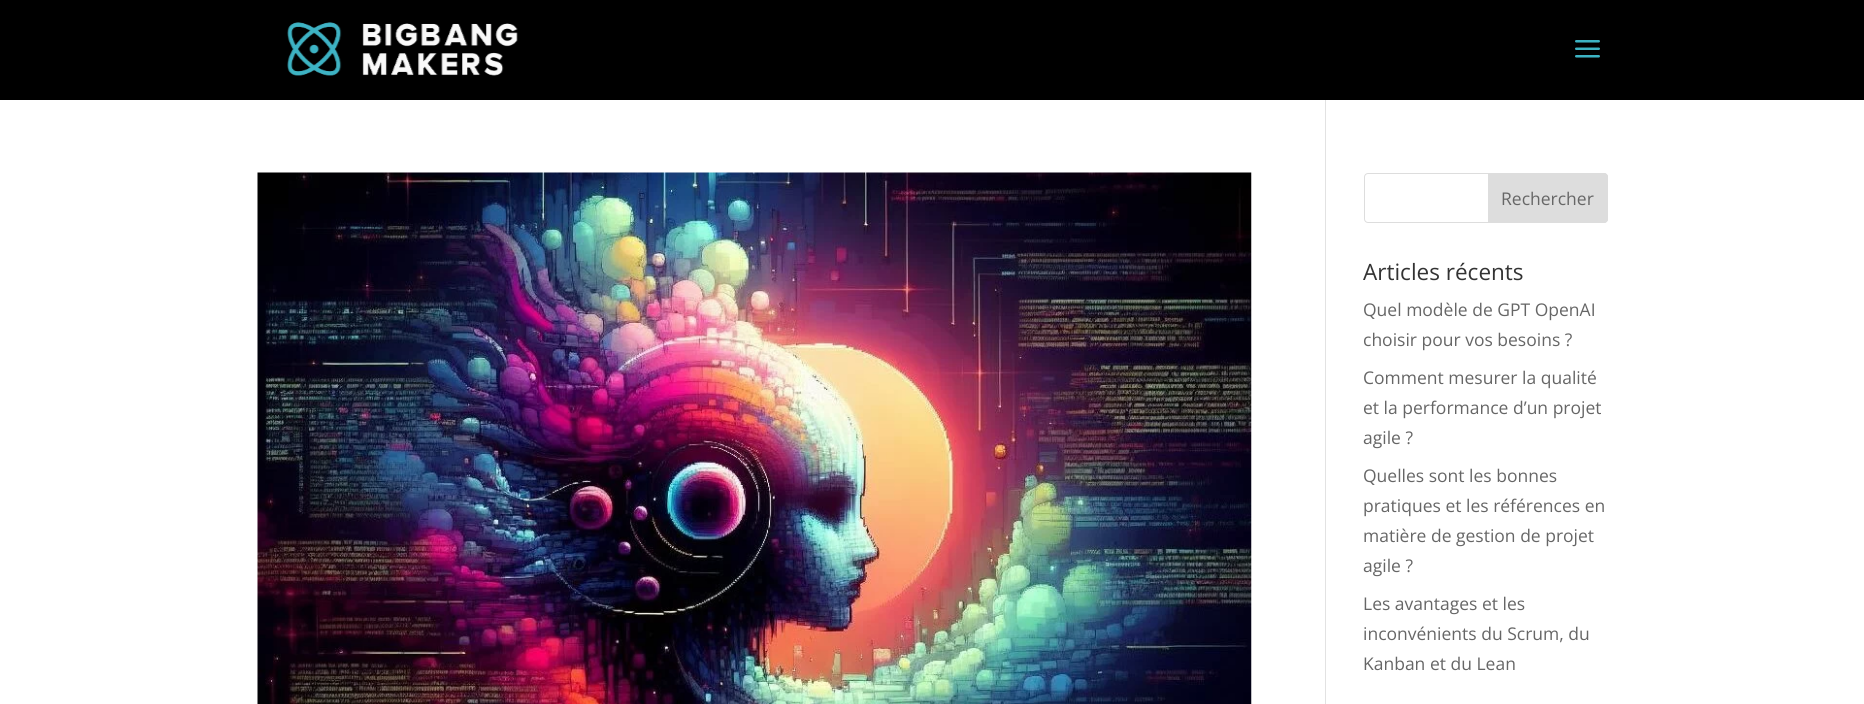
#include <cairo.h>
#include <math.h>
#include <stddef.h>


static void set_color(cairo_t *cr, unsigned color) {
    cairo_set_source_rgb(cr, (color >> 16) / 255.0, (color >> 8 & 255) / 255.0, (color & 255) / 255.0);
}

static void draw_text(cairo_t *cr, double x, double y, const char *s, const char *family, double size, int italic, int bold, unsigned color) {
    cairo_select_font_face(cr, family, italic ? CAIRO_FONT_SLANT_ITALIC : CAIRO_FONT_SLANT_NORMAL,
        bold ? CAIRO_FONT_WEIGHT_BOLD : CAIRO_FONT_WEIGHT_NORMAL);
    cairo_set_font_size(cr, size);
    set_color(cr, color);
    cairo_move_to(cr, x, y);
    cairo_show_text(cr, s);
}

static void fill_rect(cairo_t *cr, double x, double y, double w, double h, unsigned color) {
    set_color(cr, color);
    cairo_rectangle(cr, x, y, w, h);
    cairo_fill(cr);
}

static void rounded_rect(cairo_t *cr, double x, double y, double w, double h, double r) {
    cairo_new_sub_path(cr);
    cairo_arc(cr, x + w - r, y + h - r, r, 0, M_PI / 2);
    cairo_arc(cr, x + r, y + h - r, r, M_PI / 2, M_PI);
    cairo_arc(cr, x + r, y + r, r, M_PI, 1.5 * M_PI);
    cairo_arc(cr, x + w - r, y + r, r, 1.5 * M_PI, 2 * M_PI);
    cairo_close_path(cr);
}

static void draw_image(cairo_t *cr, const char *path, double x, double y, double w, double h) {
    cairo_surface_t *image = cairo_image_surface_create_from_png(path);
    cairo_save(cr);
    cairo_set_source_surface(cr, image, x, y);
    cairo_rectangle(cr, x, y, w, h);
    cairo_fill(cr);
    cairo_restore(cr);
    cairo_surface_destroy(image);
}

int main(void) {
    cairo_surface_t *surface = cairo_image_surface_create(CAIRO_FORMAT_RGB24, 1864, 704);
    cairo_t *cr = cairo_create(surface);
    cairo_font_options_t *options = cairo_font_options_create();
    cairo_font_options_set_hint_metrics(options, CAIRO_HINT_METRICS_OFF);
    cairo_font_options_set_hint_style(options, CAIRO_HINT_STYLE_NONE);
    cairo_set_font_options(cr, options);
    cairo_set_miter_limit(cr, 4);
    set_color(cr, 0xFFFFFF);
    cairo_paint(cr);
    fill_rect(cr, 0, 0, 1864, 100, 0x000000);
    draw_image(cr, "assets/img1.png", 287, 22, 231, 54);
    draw_image(cr, "assets/img2.png", 1575, 40, 25, 18);
    fill_rect(cr, 1325, 100, 1, 604, 0xE2E2E2);
    draw_image(cr, "assets/img3.png", 257, 172, 995, 532);
    rounded_rect(cr, 1364.5, 173.5, 243, 49, 3.5);
    set_color(cr, 0xDDDDDD);
    cairo_set_line_width(cr, 1);
    cairo_stroke(cr);
    cairo_new_path(cr);
    cairo_move_to(cr, 1488.5, 173.5);
    cairo_line_to(cr, 1604, 173.5);
    cairo_curve_to(cr, 1606, 173.5, 1607.5, 175, 1607.5, 177);
    cairo_line_to(cr, 1607.5, 219);
    cairo_curve_to(cr, 1607.5, 221, 1606, 222.5, 1604, 222.5);
    cairo_line_to(cr, 1488.5, 222.5);
    cairo_close_path(cr);
    cairo_fill_preserve(cr);
    cairo_stroke(cr);
    draw_text(cr, 1501, 205, "Rechercher", "Open Sans", 17.5, 0, 0, 0x666666);
    draw_text(cr, 1363, 280, "Articles récents", "Open Sans", 22.5, 0, 0, 0x333333);
    draw_text(cr, 1363, 316, "Quel modèle de GPT OpenAI", "Open Sans", 17.5, 0, 0, 0x666666);
    draw_text(cr, 1363, 346, "choisir pour vos besoins ?", "Open Sans", 17.5, 0, 0, 0x666666);
    draw_text(cr, 1363, 384, "Comment mesurer la qualité", "Open Sans", 17.5, 0, 0, 0x666666);
    draw_text(cr, 1363, 414, "et la performance d’un projet", "Open Sans", 17.5, 0, 0, 0x666666);
    draw_text(cr, 1363, 444, "agile ?", "Open Sans", 17.5, 0, 0, 0x666666);
    draw_text(cr, 1363, 482, "Quelles sont les bonnes", "Open Sans", 17.5, 0, 0, 0x666666);
    draw_text(cr, 1363, 512, "pratiques et les références en", "Open Sans", 17.5, 0, 0, 0x666666);
    draw_text(cr, 1363, 542, "matière de gestion de projet", "Open Sans", 17.5, 0, 0, 0x666666);
    draw_text(cr, 1363, 572, "agile ?", "Open Sans", 17.5, 0, 0, 0x666666);
    draw_text(cr, 1363, 610, "Les avantages et les", "Open Sans", 17.5, 0, 0, 0x666666);
    draw_text(cr, 1363, 640, "inconvénients du Scrum, du", "Open Sans", 17.5, 0, 0, 0x666666);
    draw_text(cr, 1363, 670, "Kanban et du Lean", "Open Sans", 17.5, 0, 0, 0x666666);
    cairo_surface_write_to_png(surface, "output.png");
    cairo_font_options_destroy(options);
    cairo_destroy(cr);
    cairo_surface_destroy(surface);
    return 0;
}
